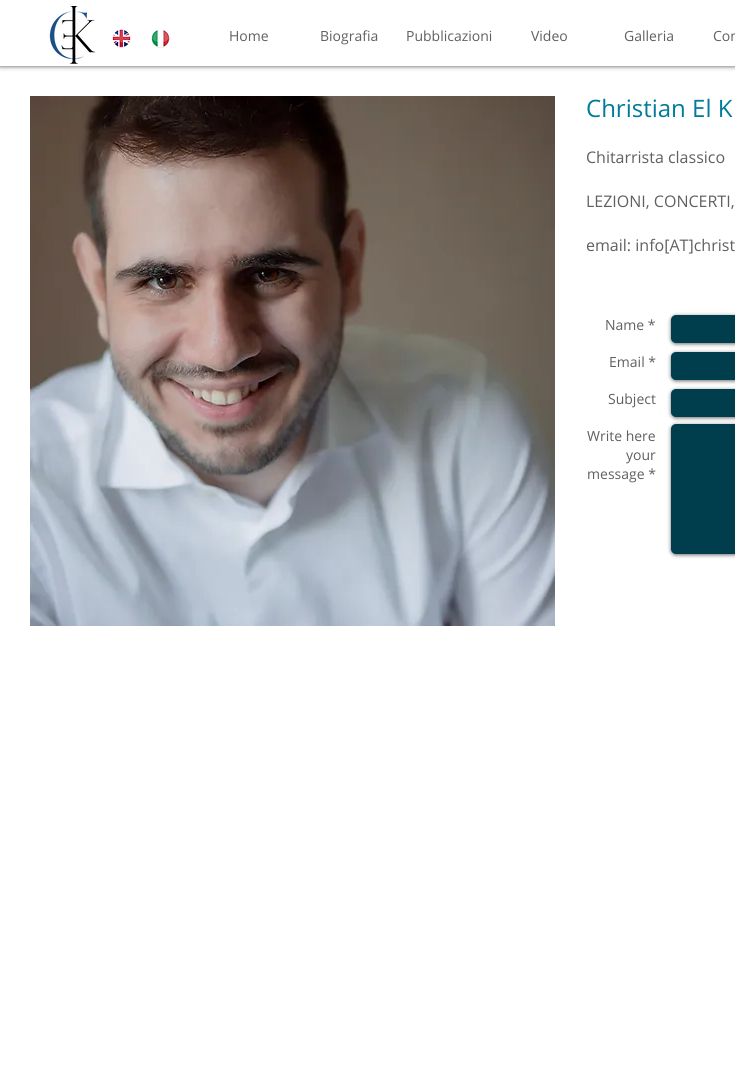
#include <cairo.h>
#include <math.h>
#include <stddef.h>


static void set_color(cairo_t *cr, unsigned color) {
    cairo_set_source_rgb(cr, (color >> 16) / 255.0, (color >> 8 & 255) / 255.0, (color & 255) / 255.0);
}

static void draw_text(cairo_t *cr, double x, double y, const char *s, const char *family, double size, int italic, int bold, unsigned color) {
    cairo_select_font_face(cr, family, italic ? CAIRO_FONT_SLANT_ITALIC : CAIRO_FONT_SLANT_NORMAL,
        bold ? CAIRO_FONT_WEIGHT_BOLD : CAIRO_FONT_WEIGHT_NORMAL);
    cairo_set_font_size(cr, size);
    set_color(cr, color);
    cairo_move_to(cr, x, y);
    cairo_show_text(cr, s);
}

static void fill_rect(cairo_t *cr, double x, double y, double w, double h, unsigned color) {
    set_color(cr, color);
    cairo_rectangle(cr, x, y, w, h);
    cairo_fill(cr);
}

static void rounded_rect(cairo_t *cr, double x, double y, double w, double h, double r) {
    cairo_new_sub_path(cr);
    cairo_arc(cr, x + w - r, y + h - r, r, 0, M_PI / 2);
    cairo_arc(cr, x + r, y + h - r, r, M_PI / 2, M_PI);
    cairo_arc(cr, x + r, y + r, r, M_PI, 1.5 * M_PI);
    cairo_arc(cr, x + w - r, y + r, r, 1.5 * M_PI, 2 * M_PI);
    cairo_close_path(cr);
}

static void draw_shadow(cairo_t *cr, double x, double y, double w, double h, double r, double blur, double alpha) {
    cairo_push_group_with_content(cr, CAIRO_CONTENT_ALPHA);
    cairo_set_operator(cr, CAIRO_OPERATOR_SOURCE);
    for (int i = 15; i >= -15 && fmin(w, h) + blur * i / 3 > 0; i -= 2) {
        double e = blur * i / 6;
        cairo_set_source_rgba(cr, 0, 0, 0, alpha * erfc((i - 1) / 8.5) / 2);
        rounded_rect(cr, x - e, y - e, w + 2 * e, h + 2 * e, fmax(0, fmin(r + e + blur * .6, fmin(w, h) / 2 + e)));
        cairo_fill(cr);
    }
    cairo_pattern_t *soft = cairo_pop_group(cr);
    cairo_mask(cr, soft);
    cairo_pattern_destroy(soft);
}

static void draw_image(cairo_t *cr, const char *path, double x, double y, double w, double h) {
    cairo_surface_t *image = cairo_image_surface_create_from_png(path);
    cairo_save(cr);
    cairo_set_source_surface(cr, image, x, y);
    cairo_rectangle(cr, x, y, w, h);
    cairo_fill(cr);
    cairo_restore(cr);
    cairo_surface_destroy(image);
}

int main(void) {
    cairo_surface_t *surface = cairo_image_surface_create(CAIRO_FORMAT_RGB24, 735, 1080);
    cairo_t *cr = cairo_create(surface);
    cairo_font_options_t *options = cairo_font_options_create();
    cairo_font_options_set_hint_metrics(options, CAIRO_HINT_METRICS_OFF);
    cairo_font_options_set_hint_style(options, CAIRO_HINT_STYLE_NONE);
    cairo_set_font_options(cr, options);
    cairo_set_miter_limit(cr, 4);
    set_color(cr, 0xFFFFFF);
    cairo_paint(cr);
    set_color(cr, 0x000000);
    draw_shadow(cr, 0, 0, 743, 66, 0, 2.5, 0.7);
    fill_rect(cr, 0, 0, 735, 66, 0xFFFFFF);
    draw_image(cr, "assets/img1.png", 49, 6, 47, 59);
    draw_image(cr, "assets/img2.png", 112, 29, 19, 19);
    draw_image(cr, "assets/img3.png", 151, 30, 19, 18);
    draw_text(cr, 229, 41, "Home", "Open Sans", 14, 0, 0, 0x606060);
    draw_text(cr, 320, 41, "Biografia", "Open Sans", 14, 0, 0, 0x606060);
    draw_text(cr, 406, 41, "Pubblicazioni", "Open Sans", 14, 0, 0, 0x606060);
    draw_text(cr, 531, 41, "Video", "Open Sans", 14, 0, 0, 0x606060);
    draw_text(cr, 624, 41, "Galleria", "Open Sans", 14, 0, 0, 0x606060);
    draw_text(cr, 713, 41, "Con", "Open Sans", 14, 0, 0, 0x606060);
    draw_image(cr, "assets/img4.png", 30, 96, 525, 530);
    draw_text(cr, 586, 117, "Christian El K", "Open Sans", 24, 0, 0, 0x007B9A);
    draw_text(cr, 586, 163, "Chitarrista classico", "Open Sans", 16, 0, 0, 0x606060);
    draw_text(cr, 586, 207, "LEZIONI, CONCERTI,", "Open Sans", 16, 0, 0, 0x606060);
    draw_text(cr, 586, 251, "email: info[AT]christ", "Open Sans", 16, 0, 0, 0x606060);
    draw_text(cr, 605, 330, "Name *", "Open Sans", 14, 0, 0, 0x606060);
    set_color(cr, 0x000000);
    draw_shadow(cr, 671, 316, 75, 28, 5, 2, 0.6);
    set_color(cr, 0x003D4D);
    rounded_rect(cr, 671, 315, 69, 28, 5);
    cairo_fill(cr);
    draw_text(cr, 609, 367, "Email *", "Open Sans", 14, 0, 0, 0x606060);
    set_color(cr, 0x000000);
    draw_shadow(cr, 671, 353, 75, 28, 5, 2, 0.6);
    set_color(cr, 0x003D4D);
    rounded_rect(cr, 671, 352, 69, 28, 5);
    cairo_fill(cr);
    draw_text(cr, 608, 404, "Subject", "Open Sans", 14, 0, 0, 0x606060);
    set_color(cr, 0x000000);
    draw_shadow(cr, 671, 390, 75, 28, 5, 2, 0.6);
    set_color(cr, 0x003D4D);
    rounded_rect(cr, 671, 389, 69, 28, 5);
    cairo_fill(cr);
    draw_text(cr, 587, 441, "Write here", "Open Sans", 14, 0, 0, 0x606060);
    draw_text(cr, 626, 460, "your", "Open Sans", 14, 0, 0, 0x606060);
    draw_text(cr, 587, 479, "message *", "Open Sans", 14, 0, 0, 0x606060);
    set_color(cr, 0x000000);
    draw_shadow(cr, 671, 425, 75, 130, 5, 2, 0.6);
    set_color(cr, 0x003D4D);
    rounded_rect(cr, 671, 424, 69, 130, 5);
    cairo_fill(cr);
    cairo_surface_write_to_png(surface, "output.png");
    cairo_font_options_destroy(options);
    cairo_destroy(cr);
    cairo_surface_destroy(surface);
    return 0;
}
